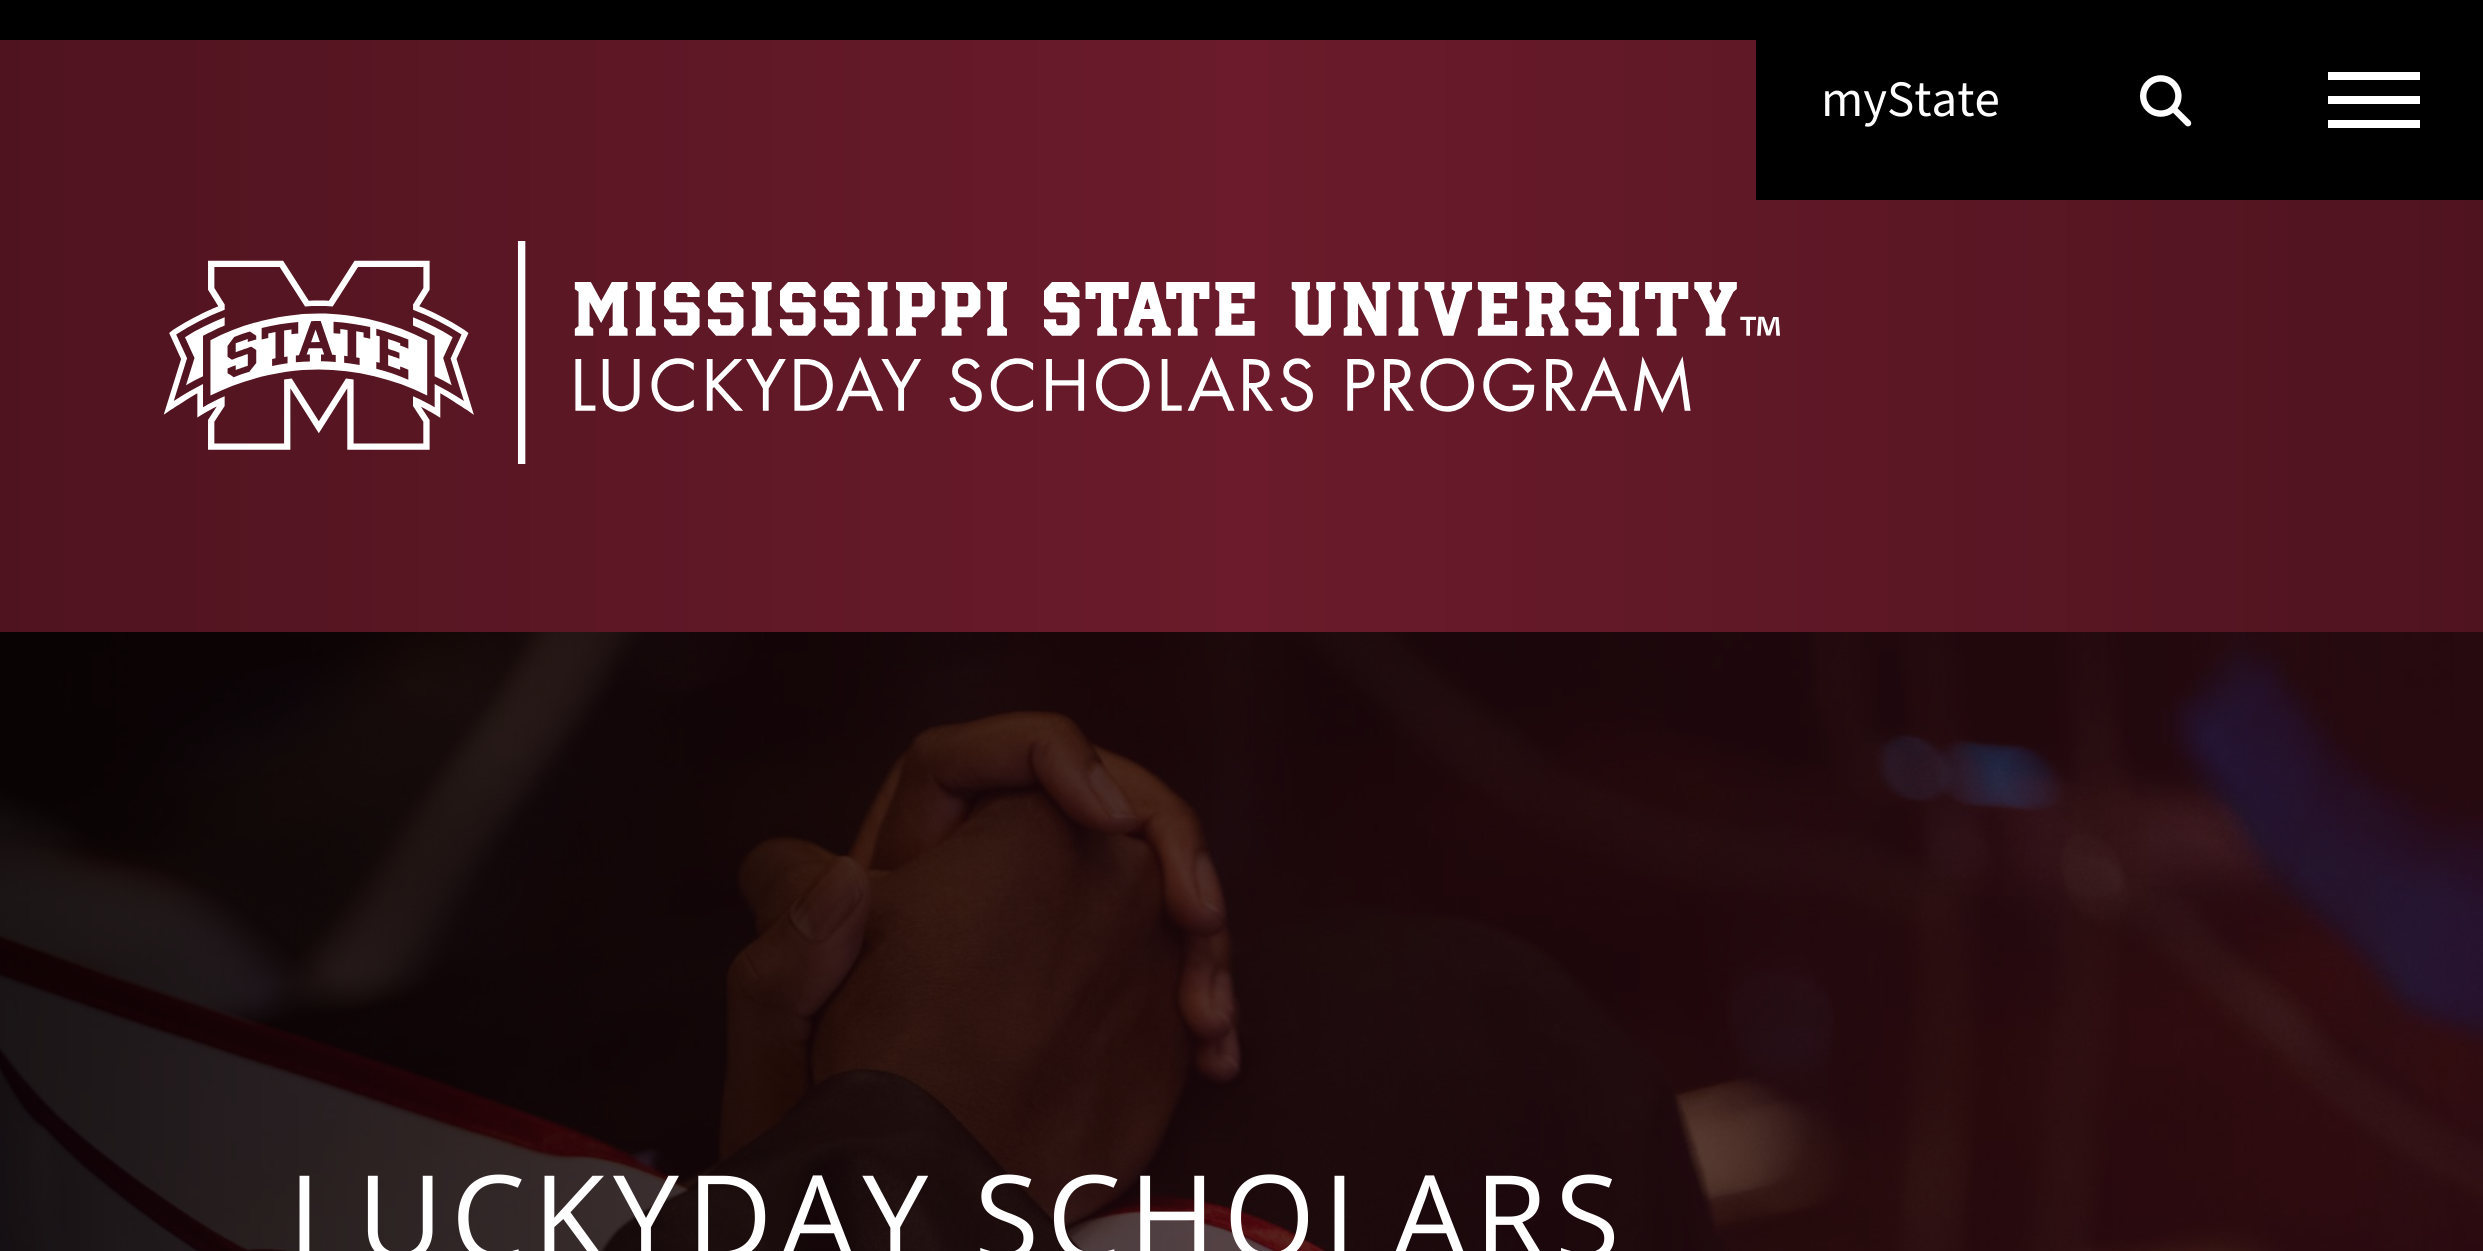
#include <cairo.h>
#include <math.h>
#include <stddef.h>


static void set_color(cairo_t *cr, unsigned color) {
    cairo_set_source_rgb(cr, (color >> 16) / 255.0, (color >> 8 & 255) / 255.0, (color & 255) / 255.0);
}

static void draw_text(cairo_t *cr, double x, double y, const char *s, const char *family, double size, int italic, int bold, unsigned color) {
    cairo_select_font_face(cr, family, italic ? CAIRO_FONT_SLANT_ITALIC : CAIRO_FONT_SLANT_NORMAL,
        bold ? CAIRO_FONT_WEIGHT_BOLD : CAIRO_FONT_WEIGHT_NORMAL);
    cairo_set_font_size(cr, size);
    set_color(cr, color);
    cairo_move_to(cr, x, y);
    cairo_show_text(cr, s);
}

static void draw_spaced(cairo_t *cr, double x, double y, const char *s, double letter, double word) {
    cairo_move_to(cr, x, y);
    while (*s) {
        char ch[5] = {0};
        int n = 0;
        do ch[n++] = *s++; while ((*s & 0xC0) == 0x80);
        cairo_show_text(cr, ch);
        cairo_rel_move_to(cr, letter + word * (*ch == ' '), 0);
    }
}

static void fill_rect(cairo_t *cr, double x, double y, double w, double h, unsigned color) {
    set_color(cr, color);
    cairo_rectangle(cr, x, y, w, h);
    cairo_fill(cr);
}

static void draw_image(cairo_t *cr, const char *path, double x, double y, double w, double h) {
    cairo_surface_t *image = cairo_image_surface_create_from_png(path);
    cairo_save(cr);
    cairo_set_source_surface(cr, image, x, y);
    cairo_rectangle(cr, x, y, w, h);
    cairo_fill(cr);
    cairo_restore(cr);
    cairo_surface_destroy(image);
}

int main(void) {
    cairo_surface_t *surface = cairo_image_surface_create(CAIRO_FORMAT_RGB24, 2483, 1251);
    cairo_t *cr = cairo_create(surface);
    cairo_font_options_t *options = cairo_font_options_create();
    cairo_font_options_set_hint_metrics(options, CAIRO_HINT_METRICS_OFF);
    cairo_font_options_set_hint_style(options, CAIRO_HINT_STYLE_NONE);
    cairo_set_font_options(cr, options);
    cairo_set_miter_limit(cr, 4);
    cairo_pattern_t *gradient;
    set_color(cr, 0xFFFFFF);
    cairo_paint(cr);
    gradient = cairo_pattern_create_linear(0, 336, 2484, 336);
    cairo_pattern_add_color_stop_rgba(gradient, 0, 0.31, 0.075, 0.122, 1);
    cairo_pattern_add_color_stop_rgba(gradient, 0.5, 0.42, 0.106, 0.169, 1);
    cairo_pattern_add_color_stop_rgba(gradient, 1, 0.31, 0.075, 0.122, 1);
    cairo_set_source(cr, gradient);
    cairo_pattern_destroy(gradient);
    cairo_rectangle(cr, 0, 40, 2483, 592);
    cairo_fill(cr);
    fill_rect(cr, 0, 0, 1756, 40, 0x000000);
    draw_image(cr, "assets/img1.png", 163, 241, 1617, 223);
    fill_rect(cr, 1756, 0, 727, 200, 0x000000);
    draw_text(cr, 1821, 116, "myState", "Source Sans 3", 51, 0, 0, 0xFFFFFF);
    draw_image(cr, "assets/img2.png", 2140, 75, 52, 52);
    fill_rect(cr, 2328, 96, 92, 8, 0xFFFFFF);
    fill_rect(cr, 2328, 72, 92, 8, 0xFFFFFF);
    fill_rect(cr, 2328, 120, 92, 8, 0xFFFFFF);
    draw_image(cr, "assets/img3.png", 0, 632, 2483, 619);
    cairo_select_font_face(cr, "Open Sans", CAIRO_FONT_SLANT_NORMAL, CAIRO_FONT_WEIGHT_NORMAL);
    cairo_set_font_size(cr, 118);
    draw_spaced(cr, 288, 1260, "LUCKYDAY SCHOLARS", 7.7, 0);
    cairo_surface_write_to_png(surface, "output.png");
    cairo_font_options_destroy(options);
    cairo_destroy(cr);
    cairo_surface_destroy(surface);
    return 0;
}
